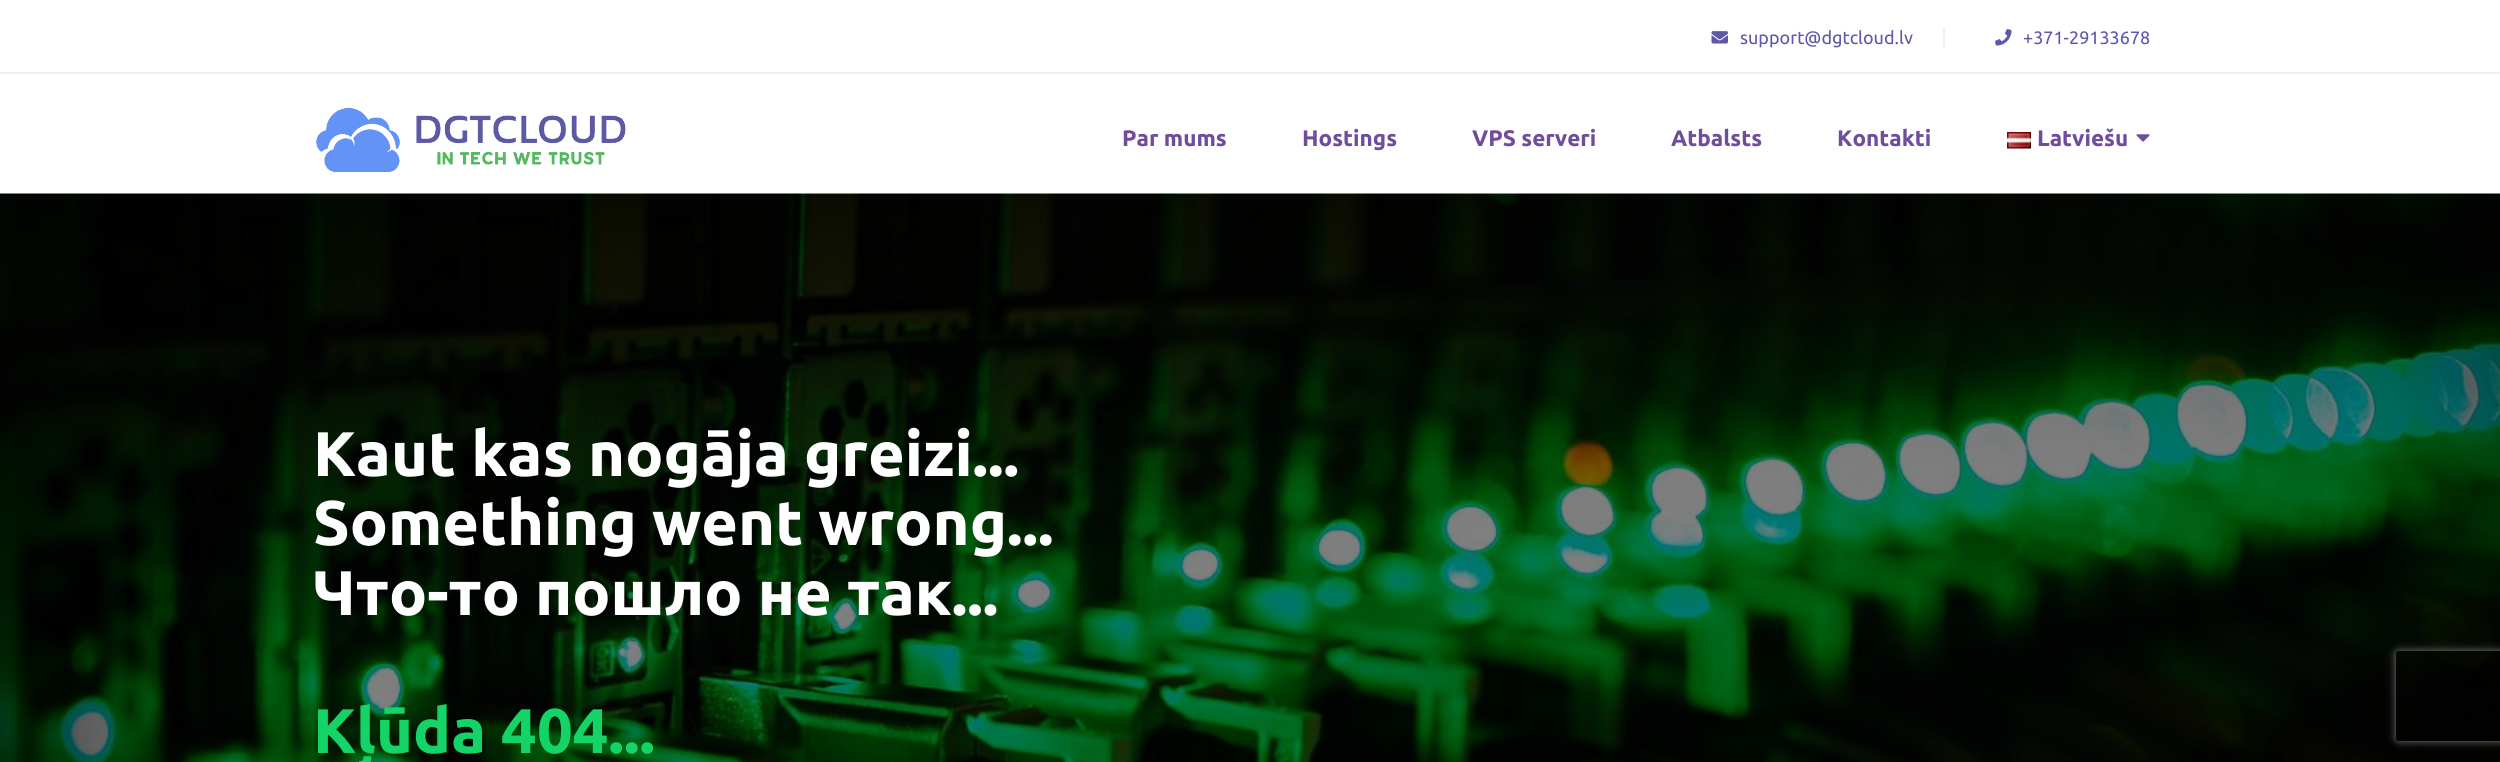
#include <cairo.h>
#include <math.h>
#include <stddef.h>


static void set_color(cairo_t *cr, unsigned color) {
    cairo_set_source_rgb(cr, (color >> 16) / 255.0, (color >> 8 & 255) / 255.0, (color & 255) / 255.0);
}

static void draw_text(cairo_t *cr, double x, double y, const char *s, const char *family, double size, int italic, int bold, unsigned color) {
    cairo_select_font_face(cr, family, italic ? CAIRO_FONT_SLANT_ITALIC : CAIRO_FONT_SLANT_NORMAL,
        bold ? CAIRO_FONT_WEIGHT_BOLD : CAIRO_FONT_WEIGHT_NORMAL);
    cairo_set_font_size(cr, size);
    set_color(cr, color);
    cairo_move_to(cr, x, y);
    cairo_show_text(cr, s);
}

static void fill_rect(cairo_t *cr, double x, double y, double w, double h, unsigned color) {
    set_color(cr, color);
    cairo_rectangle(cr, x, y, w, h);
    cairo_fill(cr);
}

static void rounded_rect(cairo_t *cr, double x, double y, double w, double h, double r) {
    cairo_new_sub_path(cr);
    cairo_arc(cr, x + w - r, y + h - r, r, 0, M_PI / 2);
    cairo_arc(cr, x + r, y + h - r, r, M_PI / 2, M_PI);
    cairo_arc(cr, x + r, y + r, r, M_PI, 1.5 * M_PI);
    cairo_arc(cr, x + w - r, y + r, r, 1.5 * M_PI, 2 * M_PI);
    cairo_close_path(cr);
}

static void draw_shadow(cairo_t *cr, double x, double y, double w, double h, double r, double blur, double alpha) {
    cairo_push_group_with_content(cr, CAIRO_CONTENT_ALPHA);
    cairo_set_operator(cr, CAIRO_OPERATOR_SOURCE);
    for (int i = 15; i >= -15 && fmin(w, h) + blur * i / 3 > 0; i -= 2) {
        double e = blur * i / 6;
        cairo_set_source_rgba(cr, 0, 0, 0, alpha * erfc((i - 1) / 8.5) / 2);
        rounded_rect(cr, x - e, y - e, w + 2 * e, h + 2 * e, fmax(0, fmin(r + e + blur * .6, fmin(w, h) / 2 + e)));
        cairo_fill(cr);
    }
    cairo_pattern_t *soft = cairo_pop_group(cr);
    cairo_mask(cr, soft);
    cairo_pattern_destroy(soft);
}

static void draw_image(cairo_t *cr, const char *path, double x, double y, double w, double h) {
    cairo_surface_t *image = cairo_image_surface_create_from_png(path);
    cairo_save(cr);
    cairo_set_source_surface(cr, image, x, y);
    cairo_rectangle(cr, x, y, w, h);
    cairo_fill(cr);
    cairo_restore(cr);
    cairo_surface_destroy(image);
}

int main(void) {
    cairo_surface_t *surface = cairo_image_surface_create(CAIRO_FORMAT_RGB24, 2500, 762);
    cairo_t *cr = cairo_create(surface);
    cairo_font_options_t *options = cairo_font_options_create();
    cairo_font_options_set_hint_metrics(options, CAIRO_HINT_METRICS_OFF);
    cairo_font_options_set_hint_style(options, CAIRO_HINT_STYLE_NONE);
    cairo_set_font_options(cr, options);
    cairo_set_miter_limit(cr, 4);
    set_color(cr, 0xFFFFFF);
    cairo_paint(cr);
    fill_rect(cr, 0, 72, 2500, 2, 0xF0F0F0);
    fill_rect(cr, 1943, 27, 2, 20, 0xF0F0F0);
    draw_image(cr, "assets/img1.png", 1711, 31, 17, 13);
    draw_text(cr, 1740, 44, "support@dgtcloud.lv", "Ubuntu", 18, 0, 0, 0x5E58AA);
    draw_image(cr, "assets/img2.png", 1995, 29, 17, 17);
    draw_text(cr, 2023, 44, "+371-29133678", "Ubuntu", 18, 0, 0, 0x5E58AA);
    draw_image(cr, "assets/img3.png", 316, 107, 310, 66);
    draw_text(cr, 1122, 146, "Par mums", "Ubuntu", 22.5, 0, 1, 0x6F4D9B);
    draw_text(cr, 1302, 146, "Hostings", "Ubuntu", 22.5, 0, 1, 0x6F4D9B);
    draw_text(cr, 1472, 146, "VPS serveri", "Ubuntu", 22.5, 0, 1, 0x6F4D9B);
    draw_text(cr, 1671, 146, "Atbalsts", "Ubuntu", 22.5, 0, 1, 0x6F4D9B);
    draw_text(cr, 1837, 146, "Kontakti", "Ubuntu", 22.5, 0, 1, 0x6F4D9B);
    draw_image(cr, "assets/img4.png", 2007, 132, 24, 17);
    draw_text(cr, 2037, 146, "Latviešu", "Ubuntu", 22.5, 0, 1, 0x6F4D9B);
    draw_image(cr, "assets/img5.png", 2136, 134, 14, 8);
    draw_image(cr, "assets/img6.png", 0, 193, 2500, 569);
    draw_text(cr, 313, 476, "Kaut kas nogāja greizi...", "Ubuntu", 63, 0, 1, 0xFFFFFF);
    draw_text(cr, 313, 545, "Something went wrong...", "Ubuntu", 63, 0, 1, 0xFFFFFF);
    draw_text(cr, 313, 615, "Что-то пошло не так...", "Ubuntu", 63, 0, 1, 0xFFFFFF);
    draw_text(cr, 313, 753, "Kļūda 404...", "Ubuntu", 63, 0, 1, 0x14D468);
    cairo_save(cr);
    cairo_set_fill_rule(cr, CAIRO_FILL_RULE_EVEN_ODD);
    cairo_new_path(cr);
    cairo_move_to(cr, 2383, 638);
    cairo_line_to(cr, 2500, 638);
    cairo_line_to(cr, 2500, 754);
    cairo_line_to(cr, 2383, 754);
    cairo_close_path(cr);
    cairo_move_to(cr, 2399, 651);
    cairo_line_to(cr, 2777, 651);
    cairo_curve_to(cr, 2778.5, 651, 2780, 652.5, 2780, 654);
    cairo_line_to(cr, 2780, 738);
    cairo_curve_to(cr, 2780, 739.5, 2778.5, 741, 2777, 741);
    cairo_line_to(cr, 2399, 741);
    cairo_curve_to(cr, 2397.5, 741, 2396, 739.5, 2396, 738);
    cairo_line_to(cr, 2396, 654);
    cairo_curve_to(cr, 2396, 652.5, 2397.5, 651, 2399, 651);
    cairo_close_path(cr);
    cairo_clip(cr);
    set_color(cr, 0x808080);
    draw_shadow(cr, 2396, 651, 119, 90, 3, 4, 1);
    cairo_restore(cr);
    cairo_surface_write_to_png(surface, "output.png");
    cairo_font_options_destroy(options);
    cairo_destroy(cr);
    cairo_surface_destroy(surface);
    return 0;
}
